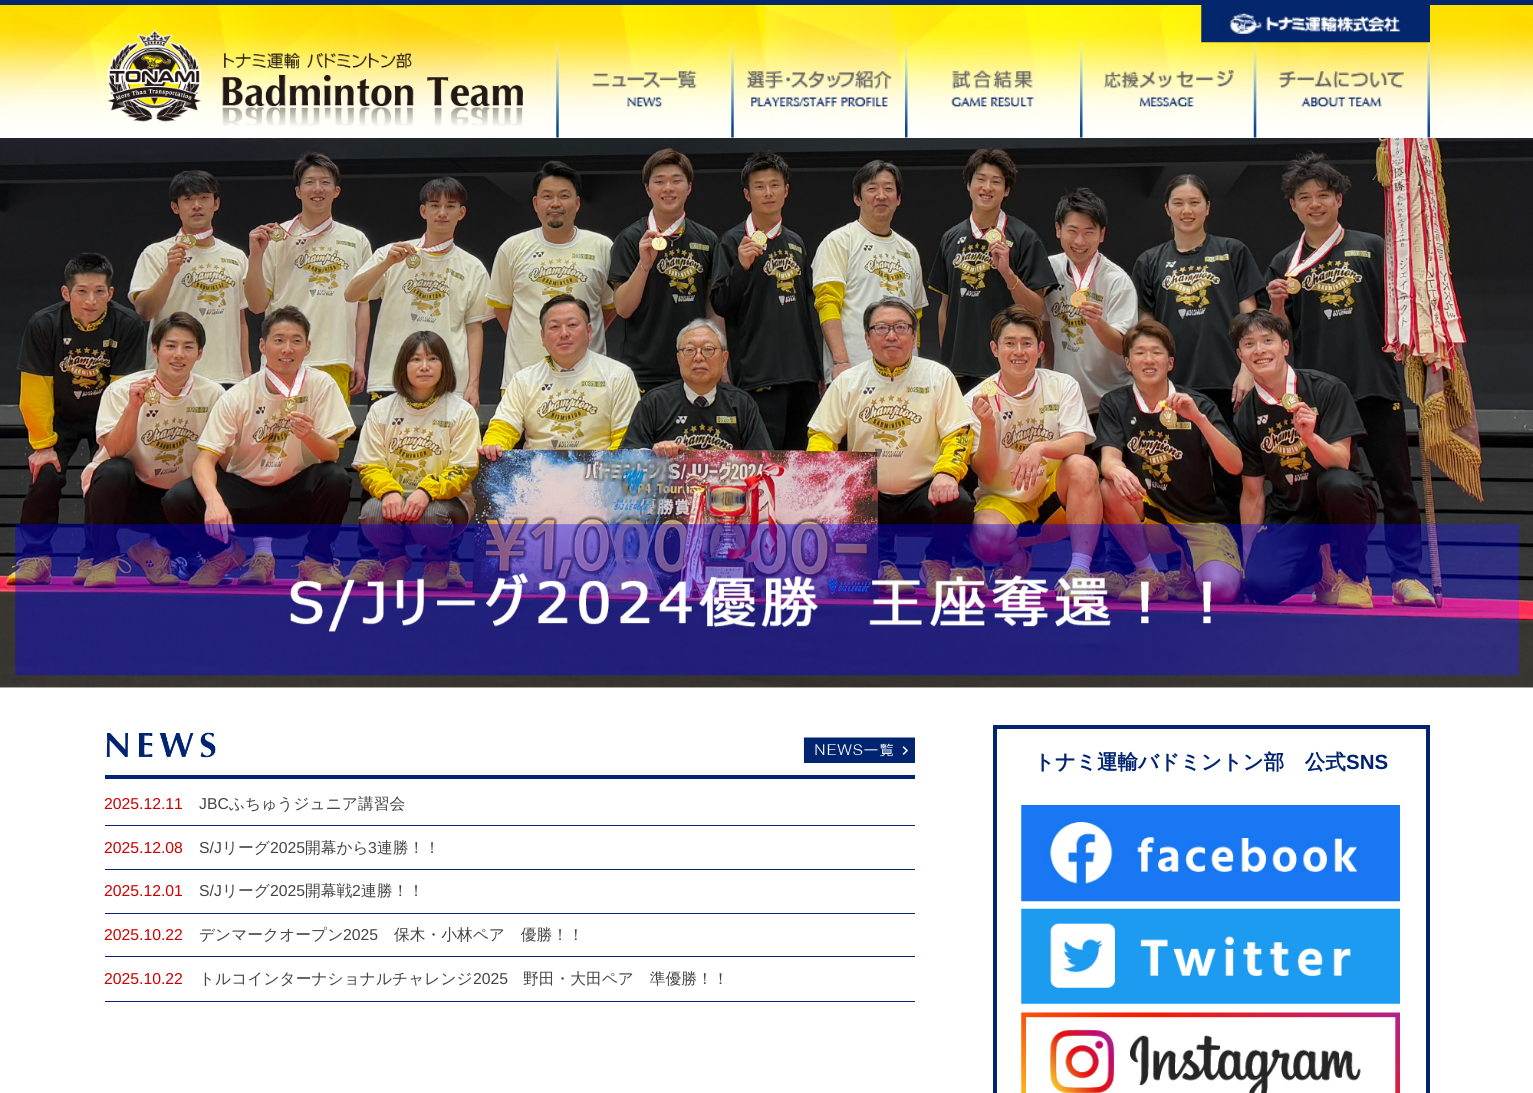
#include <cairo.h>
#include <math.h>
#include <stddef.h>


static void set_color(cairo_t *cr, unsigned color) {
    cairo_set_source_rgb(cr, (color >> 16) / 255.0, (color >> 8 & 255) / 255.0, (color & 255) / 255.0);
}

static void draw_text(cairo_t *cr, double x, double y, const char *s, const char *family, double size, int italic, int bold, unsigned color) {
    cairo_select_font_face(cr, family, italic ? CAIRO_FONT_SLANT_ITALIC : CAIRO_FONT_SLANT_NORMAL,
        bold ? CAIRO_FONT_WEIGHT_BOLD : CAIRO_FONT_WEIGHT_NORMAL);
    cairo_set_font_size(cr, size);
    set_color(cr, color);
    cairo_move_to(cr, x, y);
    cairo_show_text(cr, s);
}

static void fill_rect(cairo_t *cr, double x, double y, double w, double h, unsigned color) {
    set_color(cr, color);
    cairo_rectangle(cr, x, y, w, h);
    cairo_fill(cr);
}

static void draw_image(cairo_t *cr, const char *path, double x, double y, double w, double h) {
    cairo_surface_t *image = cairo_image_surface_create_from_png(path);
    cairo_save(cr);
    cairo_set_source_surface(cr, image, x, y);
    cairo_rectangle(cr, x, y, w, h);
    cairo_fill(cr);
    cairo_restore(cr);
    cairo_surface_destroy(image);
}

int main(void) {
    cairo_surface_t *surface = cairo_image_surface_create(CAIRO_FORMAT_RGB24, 1533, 1093);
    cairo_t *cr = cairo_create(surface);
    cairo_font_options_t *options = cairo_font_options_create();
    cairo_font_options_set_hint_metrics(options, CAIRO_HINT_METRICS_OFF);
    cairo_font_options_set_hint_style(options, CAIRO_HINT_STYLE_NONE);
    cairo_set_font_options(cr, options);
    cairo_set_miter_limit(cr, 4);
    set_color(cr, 0xFFFFFF);
    cairo_paint(cr);
    draw_image(cr, "assets/img1.png", 0, 5, 1533, 125);
    fill_rect(cr, 0, 0, 1533, 5, 0x03266C);
    draw_image(cr, "assets/img2.png", 1201, 5, 229, 38);
    draw_image(cr, "assets/img3.png", 105, 30, 418, 96);
    draw_image(cr, "assets/img4.png", 556, 42, 175, 96);
    draw_image(cr, "assets/img5.png", 731, 42, 161, 96);
    draw_image(cr, "assets/img6.png", 905, 42, 175, 96);
    draw_image(cr, "assets/img7.png", 1080, 42, 154, 96);
    draw_image(cr, "assets/img8.png", 1253, 42, 177, 96);
    draw_image(cr, "assets/img9.png", 0, 138, 1533, 550);
    cairo_rectangle(cr, 995, 727, 433, 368);
    set_color(cr, 0x00246F);
    cairo_set_line_width(cr, 4);
    cairo_stroke(cr);
    draw_text(cr, 1034, 769, "トナミ運輸バドミントン部　公式", "WenQuanYi Zen Hei", 20.5, 0, 1, 0x00246F);
    draw_text(cr, 1346, 769, "SNS", "Liberation Sans", 20.5, 0, 1, 0x00246F);
    draw_image(cr, "assets/img10.png", 1021, 805, 379, 97);
    draw_image(cr, "assets/img11.png", 1021, 908, 379, 96);
    draw_image(cr, "assets/img12.png", 1021, 1012, 379, 81);
    fill_rect(cr, 105, 775, 810, 4, 0x00246F);
    draw_image(cr, "assets/img13.png", 106, 732, 110, 26);
    draw_image(cr, "assets/img14.png", 803, 737, 112, 26);
    fill_rect(cr, 105, 825, 810, 1, 0x00246F);
    draw_text(cr, 104, 809, "2025.12.11", "Liberation Sans", 15.75, 0, 0, 0xCC0000);
    draw_text(cr, 199, 809, "JBC", "Liberation Sans", 15.75, 0, 0, 0x444444);
    draw_text(cr, 229, 809, "ふちゅうジュニア講習会", "WenQuanYi Zen Hei Medium", 15.75, 0, 0, 0x444444);
    fill_rect(cr, 105, 869, 810, 1, 0x00246F);
    draw_text(cr, 104, 853, "2025.12.08", "Liberation Sans", 15.75, 0, 0, 0xCC0000);
    draw_text(cr, 199, 853, "S/J", "Liberation Sans", 15.75, 0, 0, 0x444444);
    draw_text(cr, 222, 853, "リーグ", "WenQuanYi Zen Hei Medium", 15.75, 0, 0, 0x444444);
    draw_text(cr, 270, 853, "2025", "Liberation Sans", 15.75, 0, 0, 0x444444);
    draw_text(cr, 305, 853, "開幕から", "WenQuanYi Zen Hei Medium", 15.75, 0, 0, 0x444444);
    draw_text(cr, 368, 853, "3", "Liberation Sans", 15.75, 0, 0, 0x444444);
    draw_text(cr, 377, 853, "連勝！！", "WenQuanYi Zen Hei Medium", 15.75, 0, 0, 0x444444);
    fill_rect(cr, 105, 913, 810, 1, 0x00246F);
    draw_text(cr, 104, 896, "2025.12.01", "Liberation Sans", 15.75, 0, 0, 0xCC0000);
    draw_text(cr, 199, 896, "S/J", "Liberation Sans", 15.75, 0, 0, 0x444444);
    draw_text(cr, 222, 896, "リーグ", "WenQuanYi Zen Hei Medium", 15.75, 0, 0, 0x444444);
    draw_text(cr, 270, 896, "2025", "Liberation Sans", 15.75, 0, 0, 0x444444);
    draw_text(cr, 305, 896, "開幕戦", "WenQuanYi Zen Hei Medium", 15.75, 0, 0, 0x444444);
    draw_text(cr, 352, 896, "2", "Liberation Sans", 15.75, 0, 0, 0x444444);
    draw_text(cr, 361, 896, "連勝！！", "WenQuanYi Zen Hei Medium", 15.75, 0, 0, 0x444444);
    fill_rect(cr, 105, 956, 810, 1, 0x00246F);
    draw_text(cr, 104, 940, "2025.10.22", "Liberation Sans", 15.75, 0, 0, 0xCC0000);
    draw_text(cr, 199, 940, "デンマークオープン", "WenQuanYi Zen Hei Medium", 15.75, 0, 0, 0x444444);
    draw_text(cr, 343, 940, "2025", "Liberation Sans", 15.75, 0, 0, 0x444444);
    draw_text(cr, 394, 940, "保木・小林ペア　優勝！！", "WenQuanYi Zen Hei Medium", 15.75, 0, 0, 0x444444);
    fill_rect(cr, 105, 1001, 810, 1, 0x00246F);
    draw_text(cr, 104, 984, "2025.10.22", "Liberation Sans", 15.75, 0, 0, 0xCC0000);
    draw_text(cr, 199, 984, "トルコインターナショナルチャレンジ", "WenQuanYi Zen Hei Medium", 15.75, 0, 0, 0x444444);
    draw_text(cr, 473, 984, "2025", "Liberation Sans", 15.75, 0, 0, 0x444444);
    draw_text(cr, 523, 984, "野田・大田ペア　準優勝！！", "WenQuanYi Zen Hei Medium", 15.75, 0, 0, 0x444444);
    cairo_surface_write_to_png(surface, "output.png");
    cairo_font_options_destroy(options);
    cairo_destroy(cr);
    cairo_surface_destroy(surface);
    return 0;
}
